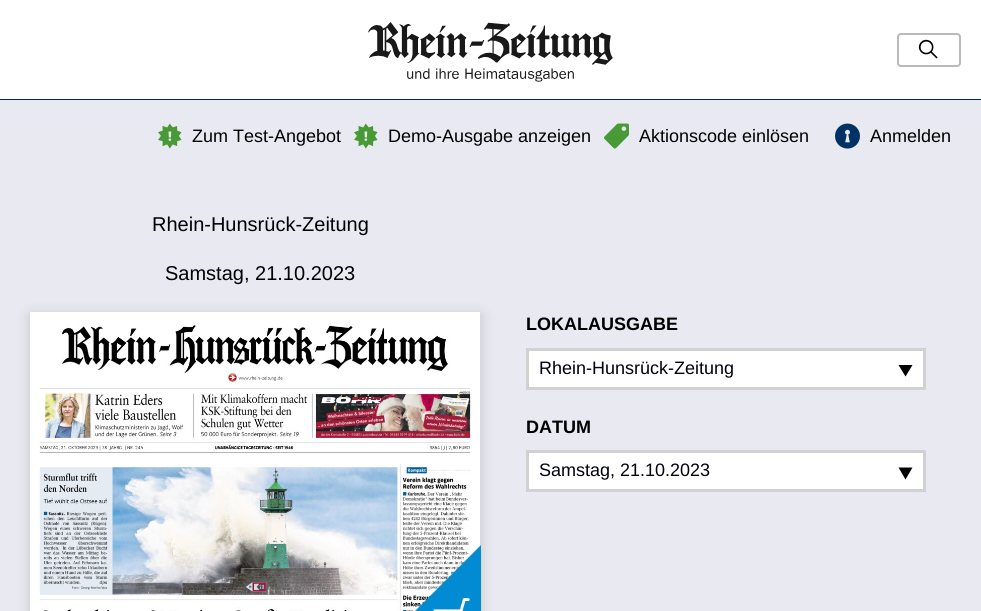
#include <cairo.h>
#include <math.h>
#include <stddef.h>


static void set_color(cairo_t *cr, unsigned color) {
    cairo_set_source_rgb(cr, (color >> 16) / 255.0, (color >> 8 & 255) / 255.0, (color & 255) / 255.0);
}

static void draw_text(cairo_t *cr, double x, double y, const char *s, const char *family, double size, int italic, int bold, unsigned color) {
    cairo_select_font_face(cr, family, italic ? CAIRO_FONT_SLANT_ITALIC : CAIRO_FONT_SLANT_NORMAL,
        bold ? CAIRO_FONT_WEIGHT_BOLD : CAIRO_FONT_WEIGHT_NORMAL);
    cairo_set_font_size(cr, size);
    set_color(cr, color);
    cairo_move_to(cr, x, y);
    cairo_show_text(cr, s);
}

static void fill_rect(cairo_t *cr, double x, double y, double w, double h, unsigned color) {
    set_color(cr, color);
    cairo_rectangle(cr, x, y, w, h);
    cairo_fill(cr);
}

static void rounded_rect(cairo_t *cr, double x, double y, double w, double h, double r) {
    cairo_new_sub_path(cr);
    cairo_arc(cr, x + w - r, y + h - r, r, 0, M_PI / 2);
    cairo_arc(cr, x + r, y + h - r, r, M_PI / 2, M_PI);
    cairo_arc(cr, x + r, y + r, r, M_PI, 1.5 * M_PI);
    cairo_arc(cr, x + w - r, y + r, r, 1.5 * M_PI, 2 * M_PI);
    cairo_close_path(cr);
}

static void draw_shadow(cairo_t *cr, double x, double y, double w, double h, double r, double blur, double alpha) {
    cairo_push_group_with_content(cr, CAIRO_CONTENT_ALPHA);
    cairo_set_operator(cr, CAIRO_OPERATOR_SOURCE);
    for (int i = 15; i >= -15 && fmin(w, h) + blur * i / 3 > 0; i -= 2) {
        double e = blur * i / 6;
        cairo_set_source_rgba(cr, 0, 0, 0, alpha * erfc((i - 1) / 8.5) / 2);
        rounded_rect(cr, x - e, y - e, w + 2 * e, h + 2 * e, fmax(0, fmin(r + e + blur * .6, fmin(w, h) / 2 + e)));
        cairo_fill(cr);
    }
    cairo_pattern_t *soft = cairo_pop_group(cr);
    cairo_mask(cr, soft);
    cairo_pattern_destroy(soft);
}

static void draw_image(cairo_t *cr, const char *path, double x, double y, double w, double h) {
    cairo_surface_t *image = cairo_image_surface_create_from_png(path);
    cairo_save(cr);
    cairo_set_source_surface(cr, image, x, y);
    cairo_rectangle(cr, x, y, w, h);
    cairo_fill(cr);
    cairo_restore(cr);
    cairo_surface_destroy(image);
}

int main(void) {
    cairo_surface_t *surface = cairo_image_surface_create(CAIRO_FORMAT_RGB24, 981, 611);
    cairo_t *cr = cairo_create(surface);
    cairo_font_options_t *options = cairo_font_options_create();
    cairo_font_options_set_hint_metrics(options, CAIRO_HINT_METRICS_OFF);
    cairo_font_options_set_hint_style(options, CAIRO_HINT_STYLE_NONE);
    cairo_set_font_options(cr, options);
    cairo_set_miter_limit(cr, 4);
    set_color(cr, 0xE9E9F1);
    cairo_paint(cr);
    fill_rect(cr, 0, 0, 981, 99, 0xFFFFFF);
    fill_rect(cr, 0, 99, 981, 1, 0x002B55);
    draw_image(cr, "assets/img1.png", 368, 22, 245, 60);
    rounded_rect(cr, 898, 34, 62, 32, 3);
    set_color(cr, 0xBABABA);
    cairo_stroke(cr);
    draw_image(cr, "assets/img2.png", 918, 39, 20, 20);
    draw_image(cr, "assets/img3.png", 158, 123, 24, 26);
    draw_text(cr, 192, 142, "Zum Test-Angebot", "Liberation Sans", 18, 0, 0, 0x000000);
    draw_image(cr, "assets/img3.png", 354, 123, 24, 26);
    draw_text(cr, 388, 142, "Demo-Ausgabe anzeigen", "Liberation Sans", 18, 0, 0, 0x000000);
    draw_image(cr, "assets/img4.png", 604, 123, 25, 26);
    draw_text(cr, 639, 142, "Aktionscode einlösen", "Liberation Sans", 18, 0, 0, 0x000000);
    draw_image(cr, "assets/img5.png", 835, 123, 25, 26);
    draw_text(cr, 870, 142, "Anmelden", "Liberation Sans", 18, 0, 0, 0x000000);
    draw_text(cr, 152, 231, "Rhein-Hunsrück-Zeitung", "Liberation Sans", 20, 0, 0, 0x000000);
    draw_text(cr, 165, 280, "Samstag, 21.10.2023", "Liberation Sans", 20, 0, 0, 0x000000);
    set_color(cr, 0x000000);
    draw_shadow(cr, 30, 315, 451, 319, 0, 7.5, 0.15);
    draw_image(cr, "assets/img6.png", 30, 312, 450, 299);
    draw_image(cr, "assets/img7.png", 415, 545, 66, 66);
    draw_text(cr, 526, 330, "LOKALAUSGABE", "Liberation Sans", 18, 0, 1, 0x000000);
    set_color(cr, 0xFFFFFF);
    cairo_rectangle(cr, 527.5, 349.5, 397, 39);
    cairo_fill_preserve(cr);
    set_color(cr, 0xD1D1D1);
    cairo_set_line_width(cr, 3);
    cairo_stroke(cr);
    draw_text(cr, 539, 374, "Rhein-Hunsrück-Zeitung", "Liberation Sans", 18, 0, 0, 0x00000F);
    set_color(cr, 0x000000);
    cairo_new_path(cr);
    cairo_move_to(cr, 898.5, 365);
    cairo_line_to(cr, 912.5, 365);
    cairo_line_to(cr, 905.5, 376.5);
    cairo_close_path(cr);
    cairo_fill(cr);
    draw_text(cr, 526, 433, "DATUM", "Liberation Sans", 18, 0, 1, 0x000000);
    set_color(cr, 0xFFFFFF);
    cairo_rectangle(cr, 527.5, 451.5, 397, 39);
    cairo_fill_preserve(cr);
    set_color(cr, 0xD1D1D1);
    cairo_stroke(cr);
    draw_text(cr, 539, 476, "Samstag, 21.10.2023", "Liberation Sans", 18, 0, 0, 0x00000F);
    set_color(cr, 0x000000);
    cairo_new_path(cr);
    cairo_move_to(cr, 898.5, 467.5);
    cairo_line_to(cr, 912.5, 467.5);
    cairo_line_to(cr, 905.5, 479.5);
    cairo_close_path(cr);
    cairo_fill(cr);
    cairo_surface_write_to_png(surface, "output.png");
    cairo_font_options_destroy(options);
    cairo_destroy(cr);
    cairo_surface_destroy(surface);
    return 0;
}
